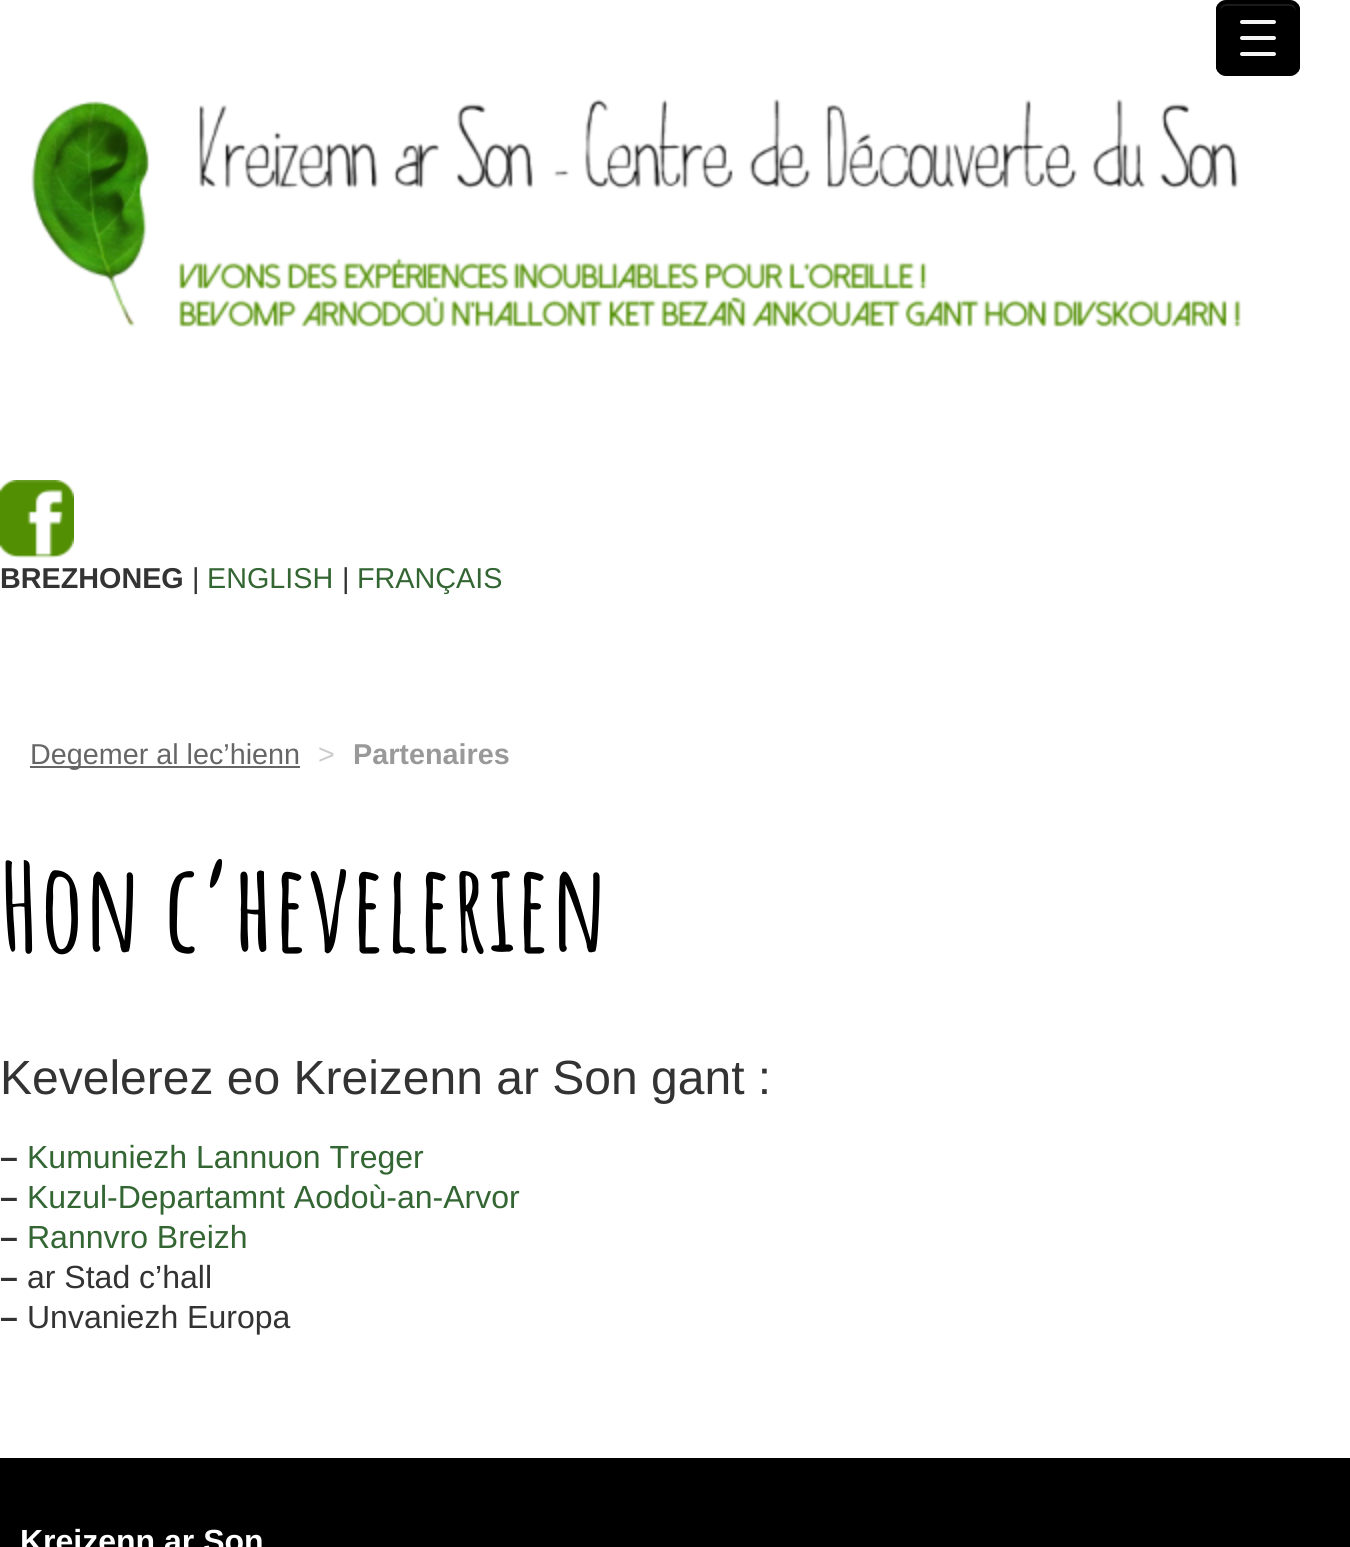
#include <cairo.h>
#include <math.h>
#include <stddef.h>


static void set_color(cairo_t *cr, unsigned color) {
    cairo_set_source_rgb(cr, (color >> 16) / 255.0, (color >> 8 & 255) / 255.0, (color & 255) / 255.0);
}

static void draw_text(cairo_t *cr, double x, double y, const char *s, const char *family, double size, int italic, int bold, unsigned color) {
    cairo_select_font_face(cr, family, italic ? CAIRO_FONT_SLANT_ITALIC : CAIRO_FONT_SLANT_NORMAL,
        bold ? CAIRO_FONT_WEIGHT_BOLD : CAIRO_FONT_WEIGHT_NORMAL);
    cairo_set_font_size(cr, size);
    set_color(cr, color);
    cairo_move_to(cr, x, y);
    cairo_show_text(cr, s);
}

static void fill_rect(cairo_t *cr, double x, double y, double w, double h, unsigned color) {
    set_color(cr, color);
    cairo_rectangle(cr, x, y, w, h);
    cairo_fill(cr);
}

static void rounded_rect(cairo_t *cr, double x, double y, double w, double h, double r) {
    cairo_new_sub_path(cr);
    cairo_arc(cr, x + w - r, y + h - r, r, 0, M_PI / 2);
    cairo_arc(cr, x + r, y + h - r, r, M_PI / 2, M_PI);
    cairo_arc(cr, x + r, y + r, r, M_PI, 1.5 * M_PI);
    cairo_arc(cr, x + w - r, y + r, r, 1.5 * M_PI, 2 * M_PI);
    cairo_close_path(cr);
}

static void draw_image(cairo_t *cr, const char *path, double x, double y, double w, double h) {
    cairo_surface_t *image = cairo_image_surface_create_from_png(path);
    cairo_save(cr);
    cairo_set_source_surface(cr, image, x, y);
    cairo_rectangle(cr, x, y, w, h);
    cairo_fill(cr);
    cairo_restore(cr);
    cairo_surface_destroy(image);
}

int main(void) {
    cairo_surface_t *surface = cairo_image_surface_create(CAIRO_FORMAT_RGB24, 1350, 1547);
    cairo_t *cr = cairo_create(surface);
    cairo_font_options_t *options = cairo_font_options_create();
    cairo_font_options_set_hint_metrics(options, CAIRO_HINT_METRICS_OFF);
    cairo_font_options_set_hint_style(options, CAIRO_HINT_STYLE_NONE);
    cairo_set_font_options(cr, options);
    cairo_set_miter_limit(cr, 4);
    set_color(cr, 0xFFFFFF);
    cairo_paint(cr);
    set_color(cr, 0x000000);
    rounded_rect(cr, 1216, 0, 84, 76, 10);
    cairo_fill(cr);
    cairo_save(cr);
    rounded_rect(cr, 1216, 0, 84, 76, 10);
    cairo_clip(cr);
    fill_rect(cr, 1216, 4, 84, 68, 0x000000);
    cairo_restore(cr);
    set_color(cr, 0x1A1A1A);
    cairo_new_path(cr);
    cairo_move_to(cr, 1226, 6);
    cairo_line_to(cr, 1290, 6);
    cairo_curve_to(cr, 1293, 6, 1296, 9, 1296, 12);
    cairo_curve_to(cr, 1296, 2, 1288, 4, 1279, 4);
    cairo_line_to(cr, 1237, 4);
    cairo_curve_to(cr, 1228, 4, 1220, 2, 1220, 12);
    cairo_curve_to(cr, 1220, 9, 1223, 6, 1226, 6);
    cairo_close_path(cr);
    cairo_fill(cr);
    cairo_new_path(cr);
    cairo_move_to(cr, 1295.5, 71.5);
    cairo_curve_to(cr, 1294, 73, 1292, 74, 1290, 74);
    cairo_line_to(cr, 1226, 74);
    cairo_curve_to(cr, 1224, 74, 1222, 73, 1220.5, 71.5);
    cairo_set_source_rgba(cr, 0, 0, 0, 0.25);
    cairo_set_line_width(cr, 4);
    cairo_stroke(cr);
    cairo_new_path(cr);
    cairo_move_to(cr, 1220.5, 71.5);
    cairo_curve_to(cr, 1216.5, 68, 1218, 61, 1218, 56.5);
    cairo_line_to(cr, 1218, 19.5);
    cairo_curve_to(cr, 1218, 1.5, 1218.5, 2, 1236.5, 2);
    cairo_line_to(cr, 1279.5, 2);
    cairo_curve_to(cr, 1297.5, 2, 1298, 1.5, 1298, 19.5);
    cairo_line_to(cr, 1298, 56.5);
    cairo_curve_to(cr, 1298, 61, 1299.5, 68, 1295.5, 71.5);
    cairo_set_source_rgba(cr, 0, 0, 0, 0.1);
    cairo_stroke(cr);
    set_color(cr, 0xF5F5F5);
    rounded_rect(cr, 1240, 36, 36, 4, 2);
    cairo_fill(cr);
    rounded_rect(cr, 1240, 20, 36, 4, 2);
    cairo_fill(cr);
    rounded_rect(cr, 1240, 52, 36, 4, 2);
    cairo_fill(cr);
    draw_image(cr, "assets/img1.png", 31, 99, 1210, 229);
    draw_image(cr, "assets/img2.png", 0, 480, 74, 78);
    draw_text(cr, 0, 588, "BREZHONEG", "Liberation Sans", 28.75, 0, 1, 0x333333);
    draw_text(cr, 192, 588, "|", "Liberation Sans", 28.75, 0, 0, 0x333333);
    draw_text(cr, 207, 588, "ENGLISH", "Liberation Sans", 28.75, 0, 0, 0x336633);
    draw_text(cr, 342, 588, "|", "Liberation Sans", 28.75, 0, 0, 0x333333);
    draw_text(cr, 357, 588, "FRANÇAIS", "Liberation Sans", 28.75, 0, 0, 0x336633);
    fill_rect(cr, 30, 766, 270, 2, 0x666666);
    draw_text(cr, 30, 764, "Degemer al lec’hienn", "Liberation Sans", 28.75, 0, 0, 0x666666);
    draw_text(cr, 318, 764, ">", "Liberation Sans", 28.75, 0, 0, 0xCCCCCC);
    draw_text(cr, 353, 764, "Partenaires", "Liberation Sans", 28.75, 0, 1, 0x999999);
    draw_text(cr, 0, 952, "Hon c’hevelerien", "Amatic SC", 121.5, 0, 1, 0x000000);
    draw_text(cr, 0, 1094, "Kevelerez eo Kreizenn ar Son gant :", "Liberation Sans", 48, 0, 0, 0x333333);
    draw_text(cr, 0, 1168, "–", "Liberation Sans", 32, 0, 1, 0x333333);
    draw_text(cr, 27, 1168, "Kumuniezh Lannuon Treger", "Liberation Sans", 32, 0, 0, 0x336633);
    draw_text(cr, 0, 1208, "–", "Liberation Sans", 32, 0, 1, 0x333333);
    draw_text(cr, 27, 1208, "Kuzul-Departamnt Aodoù-an-Arvor", "Liberation Sans", 32, 0, 0, 0x336633);
    draw_text(cr, 0, 1248, "–", "Liberation Sans", 32, 0, 1, 0x333333);
    draw_text(cr, 27, 1248, "Rannvro Breizh", "Liberation Sans", 32, 0, 0, 0x336633);
    draw_text(cr, 0, 1288, "–", "Liberation Sans", 32, 0, 1, 0x333333);
    draw_text(cr, 27, 1288, "ar Stad c’hall", "Liberation Sans", 32, 0, 0, 0x333333);
    draw_text(cr, 0, 1328, "–", "Liberation Sans", 32, 0, 1, 0x333333);
    draw_text(cr, 27, 1328, "Unvaniezh Europa", "Liberation Sans", 32, 0, 0, 0x333333);
    fill_rect(cr, 0, 1458, 1350, 89, 0x000000);
    draw_text(cr, 20, 1552, "Kreizenn ar Son", "Liberation Sans", 32, 0, 1, 0xFFFFFF);
    cairo_surface_write_to_png(surface, "output.png");
    cairo_font_options_destroy(options);
    cairo_destroy(cr);
    cairo_surface_destroy(surface);
    return 0;
}
